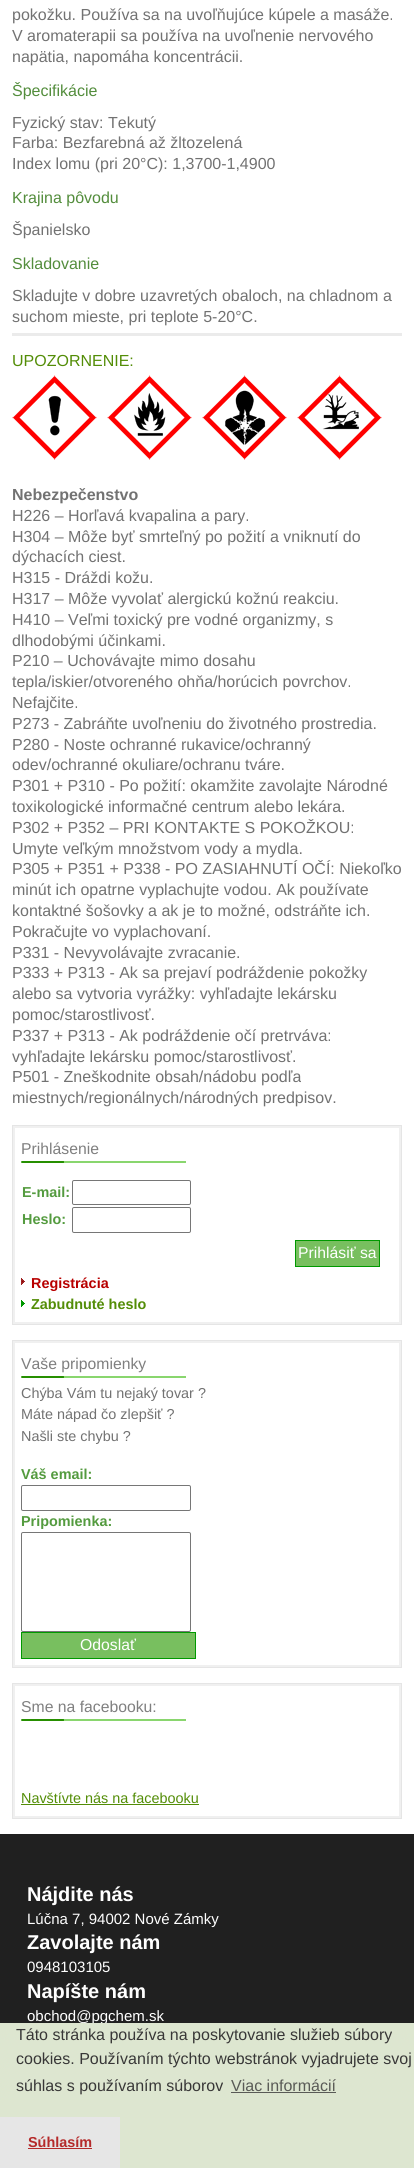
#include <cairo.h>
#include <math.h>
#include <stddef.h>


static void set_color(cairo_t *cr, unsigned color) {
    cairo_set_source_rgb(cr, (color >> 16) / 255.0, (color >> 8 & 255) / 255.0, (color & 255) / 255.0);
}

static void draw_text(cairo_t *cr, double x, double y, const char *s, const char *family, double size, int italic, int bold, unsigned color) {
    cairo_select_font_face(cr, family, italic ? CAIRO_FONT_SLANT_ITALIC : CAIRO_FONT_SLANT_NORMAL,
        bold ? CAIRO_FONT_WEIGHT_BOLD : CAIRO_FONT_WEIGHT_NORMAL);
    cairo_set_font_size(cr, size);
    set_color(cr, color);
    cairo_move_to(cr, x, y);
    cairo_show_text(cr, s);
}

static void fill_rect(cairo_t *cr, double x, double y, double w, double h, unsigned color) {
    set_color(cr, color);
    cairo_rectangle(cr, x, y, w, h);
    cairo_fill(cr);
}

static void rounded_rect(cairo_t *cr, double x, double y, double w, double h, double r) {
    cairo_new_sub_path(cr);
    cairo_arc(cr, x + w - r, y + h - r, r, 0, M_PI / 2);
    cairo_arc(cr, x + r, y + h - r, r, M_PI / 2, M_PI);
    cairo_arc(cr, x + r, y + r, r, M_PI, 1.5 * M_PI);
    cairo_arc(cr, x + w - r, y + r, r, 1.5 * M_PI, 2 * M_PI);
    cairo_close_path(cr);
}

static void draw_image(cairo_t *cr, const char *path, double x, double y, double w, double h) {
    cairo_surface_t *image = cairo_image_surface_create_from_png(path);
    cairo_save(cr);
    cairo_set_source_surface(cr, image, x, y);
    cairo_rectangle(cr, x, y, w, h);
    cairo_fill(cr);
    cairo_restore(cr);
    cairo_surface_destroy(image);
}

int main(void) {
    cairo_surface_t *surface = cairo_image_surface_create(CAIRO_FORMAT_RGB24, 414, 2168);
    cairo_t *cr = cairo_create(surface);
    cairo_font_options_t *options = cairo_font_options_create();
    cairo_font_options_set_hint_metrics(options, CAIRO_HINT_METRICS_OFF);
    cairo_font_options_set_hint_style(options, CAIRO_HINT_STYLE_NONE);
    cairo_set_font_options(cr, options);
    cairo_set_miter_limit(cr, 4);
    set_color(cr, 0xFFFFFF);
    cairo_paint(cr);
    draw_text(cr, 12, 20, "pokožku. Používa sa na uvoľňujúce kúpele a masáže.", "Liberation Sans", 16, 0, 0, 0x727272);
    draw_text(cr, 12, 41, "V aromaterapii sa používa na uvoľnenie nervového", "Liberation Sans", 16, 0, 0, 0x727272);
    draw_text(cr, 12, 62, "napätia, napomáha koncentrácii.", "Liberation Sans", 16, 0, 0, 0x727272);
    draw_text(cr, 12, 96, "Špecifikácie", "Liberation Sans", 16, 0, 0, 0x538D3C);
    draw_text(cr, 12, 128, "Fyzický stav: Tekutý", "Liberation Sans", 16, 0, 0, 0x727272);
    draw_text(cr, 12, 148, "Farba: Bezfarebná až žltozelená", "Liberation Sans", 16, 0, 0, 0x727272);
    draw_text(cr, 12, 169, "Index lomu (pri 20°C): 1,3700-1,4900", "Liberation Sans", 16, 0, 0, 0x727272);
    draw_text(cr, 12, 203, "Krajina pôvodu", "Liberation Sans", 16, 0, 0, 0x538D3C);
    draw_text(cr, 12, 235, "Španielsko", "Liberation Sans", 16, 0, 0, 0x727272);
    draw_text(cr, 12, 269, "Skladovanie", "Liberation Sans", 16, 0, 0, 0x538D3C);
    draw_text(cr, 12, 301, "Skladujte v dobre uzavretých obaloch, na chladnom a", "Liberation Sans", 16, 0, 0, 0x727272);
    draw_text(cr, 12, 322, "suchom mieste, pri teplote 5-20°C.", "Liberation Sans", 16, 0, 0, 0x727272);
    fill_rect(cr, 12, 333, 390, 3, 0xEBEBEB);
    draw_text(cr, 12, 366, "UPOZORNENIE:", "Liberation Sans", 16, 0, 0, 0x538D07);
    draw_image(cr, "assets/img1.png", 12, 375, 85, 85);
    draw_image(cr, "assets/img2.png", 107, 375, 85, 85);
    draw_image(cr, "assets/img3.png", 202, 375, 85, 85);
    draw_image(cr, "assets/img4.png", 297, 375, 85, 85);
    draw_text(cr, 12, 500, "Nebezpečenstvo", "Liberation Sans", 16, 0, 1, 0x727272);
    draw_text(cr, 12, 521, "H226 – Horľavá kvapalina a pary.", "Liberation Sans", 16, 0, 0, 0x727272);
    draw_text(cr, 12, 542, "H304 – Môže byť smrteľný po požití a vniknutí do", "Liberation Sans", 16, 0, 0, 0x727272);
    draw_text(cr, 12, 562, "dýchacích ciest.", "Liberation Sans", 16, 0, 0, 0x727272);
    draw_text(cr, 12, 583, "H315 - Dráždi kožu.", "Liberation Sans", 16, 0, 0, 0x727272);
    draw_text(cr, 12, 604, "H317 – Môže vyvolať alergickú kožnú reakciu.", "Liberation Sans", 16, 0, 0, 0x727272);
    draw_text(cr, 12, 625, "H410 – Veľmi toxický pre vodné organizmy, s", "Liberation Sans", 16, 0, 0, 0x727272);
    draw_text(cr, 12, 646, "dlhodobými účinkami.", "Liberation Sans", 16, 0, 0, 0x727272);
    draw_text(cr, 12, 666, "P210 – Uchovávajte mimo dosahu", "Liberation Sans", 16, 0, 0, 0x727272);
    draw_text(cr, 12, 687, "tepla/iskier/otvoreného ohňa/horúcich povrchov.", "Liberation Sans", 16, 0, 0, 0x727272);
    draw_text(cr, 12, 708, "Nefajčite.", "Liberation Sans", 16, 0, 0, 0x727272);
    draw_text(cr, 12, 729, "P273 - Zabráňte uvoľneniu do životného prostredia.", "Liberation Sans", 16, 0, 0, 0x727272);
    draw_text(cr, 12, 750, "P280 - Noste ochranné rukavice/ochranný", "Liberation Sans", 16, 0, 0, 0x727272);
    draw_text(cr, 12, 770, "odev/ochranné okuliare/ochranu tváre.", "Liberation Sans", 16, 0, 0, 0x727272);
    draw_text(cr, 12, 791, "P301 + P310 - Po požití: okamžite zavolajte Národné", "Liberation Sans", 16, 0, 0, 0x727272);
    draw_text(cr, 12, 812, "toxikologické informačné centrum alebo lekára.", "Liberation Sans", 16, 0, 0, 0x727272);
    draw_text(cr, 12, 833, "P302 + P352 – PRI KONTAKTE S POKOŽKOU:", "Liberation Sans", 16, 0, 0, 0x727272);
    draw_text(cr, 12, 854, "Umyte veľkým množstvom vody a mydla.", "Liberation Sans", 16, 0, 0, 0x727272);
    draw_text(cr, 12, 874, "P305 + P351 + P338 - PO ZASIAHNUTÍ OČÍ: Niekoľko", "Liberation Sans", 16, 0, 0, 0x727272);
    draw_text(cr, 12, 895, "minút ich opatrne vyplachujte vodou. Ak používate", "Liberation Sans", 16, 0, 0, 0x727272);
    draw_text(cr, 12, 916, "kontaktné šošovky a ak je to možné, odstráňte ich.", "Liberation Sans", 16, 0, 0, 0x727272);
    draw_text(cr, 12, 937, "Pokračujte vo vyplachovaní.", "Liberation Sans", 16, 0, 0, 0x727272);
    draw_text(cr, 12, 958, "P331 - Nevyvolávajte zvracanie.", "Liberation Sans", 16, 0, 0, 0x727272);
    draw_text(cr, 12, 978, "P333 + P313 - Ak sa prejaví podráždenie pokožky", "Liberation Sans", 16, 0, 0, 0x727272);
    draw_text(cr, 12, 999, "alebo sa vytvoria vyrážky: vyhľadajte lekársku", "Liberation Sans", 16, 0, 0, 0x727272);
    draw_text(cr, 12, 1020, "pomoc/starostlivosť.", "Liberation Sans", 16, 0, 0, 0x727272);
    draw_text(cr, 12, 1041, "P337 + P313 - Ak podráždenie očí pretrváva:", "Liberation Sans", 16, 0, 0, 0x727272);
    draw_text(cr, 12, 1062, "vyhľadajte lekársku pomoc/starostlivosť.", "Liberation Sans", 16, 0, 0, 0x727272);
    draw_text(cr, 12, 1082, "P501 - Zneškodnite obsah/nádobu podľa", "Liberation Sans", 16, 0, 0, 0x727272);
    draw_text(cr, 12, 1103, "miestnych/regionálnych/národných predpisov.", "Liberation Sans", 16, 0, 0, 0x727272);
    cairo_rectangle(cr, 12.5, 1125.5, 389, 199);
    set_color(cr, 0xE5E5E5);
    cairo_set_line_width(cr, 1);
    cairo_stroke(cr);
    cairo_rectangle(cr, 14, 1127, 386, 196);
    set_color(cr, 0xF0F0F0);
    cairo_set_line_width(cr, 2);
    cairo_stroke(cr);
    draw_image(cr, "assets/img5.png", 21, 1161, 165, 2);
    draw_text(cr, 21, 1154, "Prihlásenie", "Liberation Sans", 15.75, 0, 0, 0x7F7F7F);
    draw_text(cr, 22, 1197, "E-mail:", "Liberation Sans", 14.4, 0, 1, 0x549B3F);
    rounded_rect(cr, 72.5, 1180.5, 118, 24, 1.5);
    set_color(cr, 0x767676);
    cairo_set_line_width(cr, 1);
    cairo_stroke(cr);
    draw_text(cr, 22, 1224, "Heslo:", "Liberation Sans", 14.4, 0, 1, 0x549B3F);
    rounded_rect(cr, 72.5, 1207.5, 118, 25, 1.5);
    set_color(cr, 0x767676);
    cairo_stroke(cr);
    set_color(cr, 0x78BF5F);
    cairo_rectangle(cr, 295.5, 1240.5, 84, 26);
    cairo_fill_preserve(cr);
    set_color(cr, 0x009900);
    cairo_stroke(cr);
    draw_text(cr, 298, 1258, "Prihlásiť sa", "Liberation Sans", 15.75, 0, 0, 0xFFFFFF);
    draw_image(cr, "assets/img6.png", 21, 1278, 4, 7);
    draw_text(cr, 31, 1288, "Registrácia", "Liberation Sans", 14.4, 0, 1, 0xB80000);
    draw_image(cr, "assets/img7.png", 21, 1300, 4, 7);
    draw_text(cr, 31, 1309, "Zabudnuté heslo", "Liberation Sans", 14.4, 0, 1, 0x538D07);
    cairo_rectangle(cr, 12.5, 1340.5, 389, 327);
    set_color(cr, 0xE5E5E5);
    cairo_stroke(cr);
    cairo_rectangle(cr, 14, 1342, 386, 324);
    set_color(cr, 0xF0F0F0);
    cairo_set_line_width(cr, 2);
    cairo_stroke(cr);
    draw_image(cr, "assets/img5.png", 21, 1376, 165, 2);
    draw_text(cr, 21, 1369, "Vaše pripomienky", "Liberation Sans", 15.75, 0, 0, 0x7F7F7F);
    draw_text(cr, 21, 1398, "Chýba Vám tu nejaký tovar ?", "Liberation Sans", 14.4, 0, 0, 0x727272);
    draw_text(cr, 21, 1419, "Máte nápad čo zlepšiť ?", "Liberation Sans", 14.4, 0, 0, 0x727272);
    draw_text(cr, 21, 1441, "Našli ste chybu ?", "Liberation Sans", 14.4, 0, 0, 0x727272);
    draw_text(cr, 21, 1479, "Váš email:", "Liberation Sans", 14.4, 0, 1, 0x549B3F);
    rounded_rect(cr, 21.5, 1485.5, 169, 25, 1.5);
    set_color(cr, 0x767676);
    cairo_set_line_width(cr, 1);
    cairo_stroke(cr);
    draw_text(cr, 21, 1526, "Pripomienka:", "Liberation Sans", 14.4, 0, 1, 0x549B3F);
    rounded_rect(cr, 21.5, 1532.5, 169, 99, 1.5);
    set_color(cr, 0x767676);
    cairo_stroke(cr);
    set_color(cr, 0x78BF5F);
    cairo_rectangle(cr, 21.5, 1632.5, 174, 26);
    cairo_fill_preserve(cr);
    set_color(cr, 0x009900);
    cairo_stroke(cr);
    draw_text(cr, 80, 1650, "Odoslať", "Liberation Sans", 15.75, 0, 0, 0xFFFFFF);
    cairo_rectangle(cr, 12.5, 1683.5, 389, 135);
    set_color(cr, 0xE5E5E5);
    cairo_stroke(cr);
    cairo_rectangle(cr, 14, 1685, 386, 132);
    set_color(cr, 0xF0F0F0);
    cairo_set_line_width(cr, 2);
    cairo_stroke(cr);
    draw_image(cr, "assets/img5.png", 21, 1719, 165, 2);
    draw_text(cr, 21, 1712, "Sme na facebooku:", "Liberation Sans", 15.75, 0, 0, 0x7F7F7F);
    draw_text(cr, 21, 1803, "Navštívte nás na facebooku", "Liberation Sans", 14.4, 0, 0, 0x538D07);
    fill_rect(cr, 21, 1804, 178, 1, 0x538D07);
    fill_rect(cr, 0, 1834, 414, 189, 0x202020);
    draw_text(cr, 27, 1901, "Nájdite nás", "Liberation Sans", 20, 0, 1, 0xFFFFFF);
    draw_text(cr, 27, 1924, "Lúčna 7, 94002 Nové Zámky", "Liberation Sans", 15, 0, 0, 0xFFFFFF);
    draw_text(cr, 27, 1949, "Zavolajte nám", "Liberation Sans", 20, 0, 1, 0xFFFFFF);
    draw_text(cr, 27, 1972, "0948103105", "Liberation Sans", 15, 0, 0, 0xFFFFFF);
    draw_text(cr, 27, 1998, "Napíšte nám", "Liberation Sans", 20, 0, 1, 0xFFFFFF);
    draw_text(cr, 27, 2021, "obchod@pgchem.sk", "Liberation Sans", 15, 0, 0, 0xFFFFFF);
    fill_rect(cr, 0, 2023, 414, 145, 0xDDE6D0);
    draw_text(cr, 16, 2040, "Táto stránka používa na poskytovanie služieb súbory", "Liberation Sans", 16, 0, 0, 0x383737);
    draw_text(cr, 16, 2064, "cookies. Používaním týchto webstránok vyjadrujete svoj", "Liberation Sans", 16, 0, 0, 0x383737);
    draw_text(cr, 16, 2091, "súhlas s používaním súborov", "Liberation Sans", 16, 0, 0, 0x383737);
    draw_text(cr, 231, 2091, "Viac informácií", "Liberation Sans", 16, 0, 0, 0x595A56);
    fill_rect(cr, 231, 2092, 105, 1, 0x595A56);
    fill_rect(cr, 0, 2117, 120, 51, 0xE6E6E6);
    draw_text(cr, 28, 2147, "Súhlasím", "Liberation Sans", 14.4, 0, 1, 0xB52A2A);
    fill_rect(cr, 28, 2148, 64, 1, 0xB52A2A);
    cairo_surface_write_to_png(surface, "output.png");
    cairo_font_options_destroy(options);
    cairo_destroy(cr);
    cairo_surface_destroy(surface);
    return 0;
}
